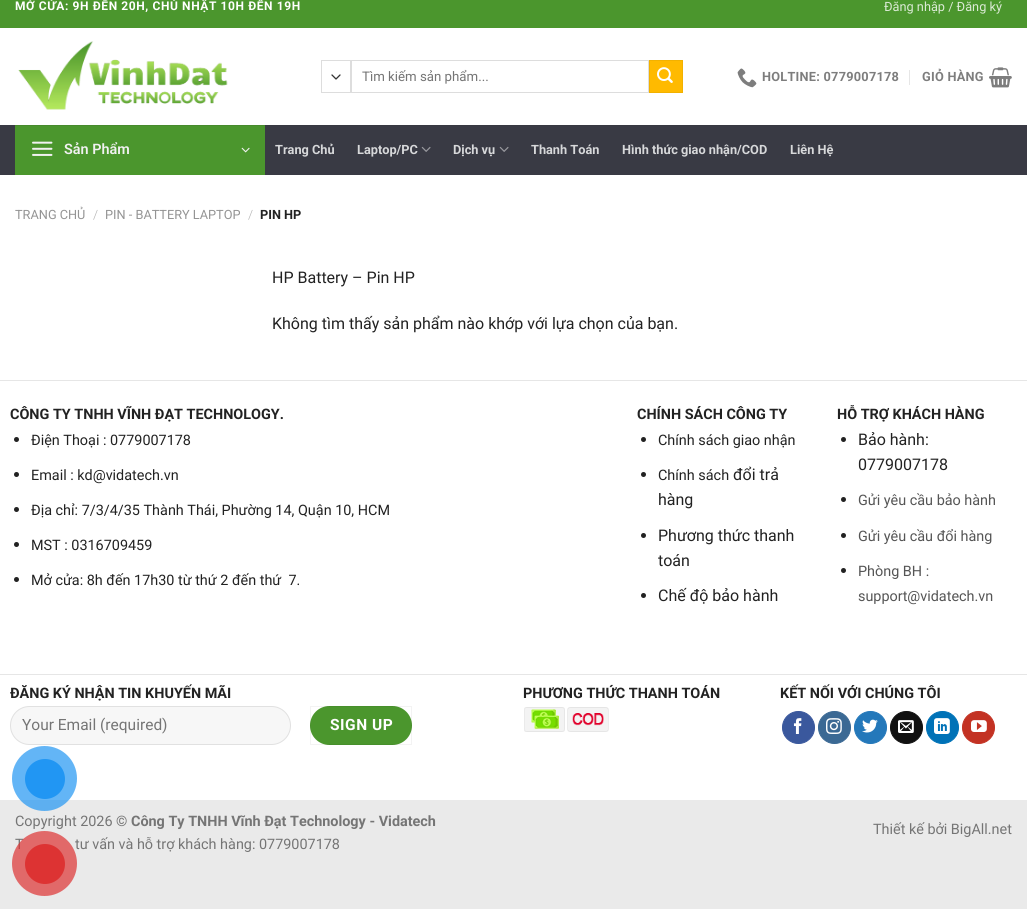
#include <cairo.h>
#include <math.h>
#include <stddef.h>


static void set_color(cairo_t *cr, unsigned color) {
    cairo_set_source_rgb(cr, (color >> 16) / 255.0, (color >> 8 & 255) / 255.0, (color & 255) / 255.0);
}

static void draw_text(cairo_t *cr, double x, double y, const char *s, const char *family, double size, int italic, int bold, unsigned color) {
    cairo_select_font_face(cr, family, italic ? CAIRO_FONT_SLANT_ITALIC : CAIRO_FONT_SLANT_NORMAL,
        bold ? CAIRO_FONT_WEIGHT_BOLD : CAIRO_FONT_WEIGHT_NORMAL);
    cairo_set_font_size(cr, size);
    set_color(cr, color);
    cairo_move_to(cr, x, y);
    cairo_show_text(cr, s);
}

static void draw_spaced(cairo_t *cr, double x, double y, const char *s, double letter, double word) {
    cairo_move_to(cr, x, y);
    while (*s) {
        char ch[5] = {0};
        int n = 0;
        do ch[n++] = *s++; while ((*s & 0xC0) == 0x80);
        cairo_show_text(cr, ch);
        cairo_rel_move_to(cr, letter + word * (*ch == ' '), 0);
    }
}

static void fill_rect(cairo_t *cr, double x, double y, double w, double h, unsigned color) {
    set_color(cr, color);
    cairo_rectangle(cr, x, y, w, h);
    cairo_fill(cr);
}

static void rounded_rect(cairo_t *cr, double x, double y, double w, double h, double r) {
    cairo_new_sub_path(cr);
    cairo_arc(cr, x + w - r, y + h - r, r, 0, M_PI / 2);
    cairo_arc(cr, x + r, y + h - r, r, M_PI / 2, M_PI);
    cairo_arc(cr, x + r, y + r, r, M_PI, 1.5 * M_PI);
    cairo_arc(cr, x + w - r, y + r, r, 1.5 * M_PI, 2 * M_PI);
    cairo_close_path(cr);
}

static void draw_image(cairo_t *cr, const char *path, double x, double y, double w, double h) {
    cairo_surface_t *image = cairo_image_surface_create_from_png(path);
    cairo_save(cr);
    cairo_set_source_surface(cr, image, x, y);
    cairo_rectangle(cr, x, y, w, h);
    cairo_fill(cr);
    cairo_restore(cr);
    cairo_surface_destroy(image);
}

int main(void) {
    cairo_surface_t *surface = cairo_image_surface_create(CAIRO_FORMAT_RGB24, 1027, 909);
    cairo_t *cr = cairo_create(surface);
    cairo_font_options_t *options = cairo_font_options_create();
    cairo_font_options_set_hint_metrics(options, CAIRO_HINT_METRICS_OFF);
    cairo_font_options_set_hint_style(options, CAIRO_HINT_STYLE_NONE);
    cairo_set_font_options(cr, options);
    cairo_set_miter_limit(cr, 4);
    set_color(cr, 0xEAEAEA);
    cairo_paint(cr);
    fill_rect(cr, 0, 28, 1027, 772, 0xFFFFFF);
    fill_rect(cr, 0, 0, 1027, 28, 0x4B962D);
    cairo_select_font_face(cr, "Roboto", CAIRO_FONT_SLANT_NORMAL, CAIRO_FONT_WEIGHT_BOLD);
    cairo_set_font_size(cr, 12);
    set_color(cr, 0xFFFFFF);
    draw_spaced(cr, 15, 10, "MỞ CỬA: 9H ĐẾN 20H, CHỦ NHẬT 10H ĐẾN 19H", 0.6, 0);
    draw_text(cr, 884, 11, "Đăng nhập / Đăng ký", "Roboto", 12.75, 0, 0, 0xDBEAD5);
    draw_image(cr, "assets/img1.png", 18, 41, 210, 69);
    cairo_new_path(cr);
    cairo_move_to(cr, 332, 75);
    cairo_line_to(cr, 336, 79);
    cairo_line_to(cr, 340, 75);
    set_color(cr, 0x333333);
    cairo_set_line_width(cr, 1.3);
    cairo_set_line_cap(cr, CAIRO_LINE_CAP_ROUND);
    cairo_set_line_join(cr, CAIRO_LINE_JOIN_ROUND);
    cairo_stroke(cr);
    cairo_rectangle(cr, 321.5, 60.5, 29, 32);
    set_color(cr, 0xDDDDDD);
    cairo_set_line_width(cr, 1);
    cairo_set_line_cap(cr, CAIRO_LINE_CAP_BUTT);
    cairo_set_line_join(cr, CAIRO_LINE_JOIN_MITER);
    cairo_stroke(cr);
    cairo_rectangle(cr, 351.5, 60.5, 297, 32);
    cairo_stroke(cr);
    draw_text(cr, 362, 81, "Tìm kiếm sản phẩm...", "Roboto", 13.25, 0, 0, 0x757575);
    set_color(cr, 0xFFBA00);
    cairo_rectangle(cr, 649.5, 60.5, 33, 32);
    cairo_fill_preserve(cr);
    set_color(cr, 0xF2B100);
    cairo_stroke(cr);
    draw_image(cr, "assets/img2.png", 657, 67, 16, 16);
    draw_image(cr, "assets/img3.png", 737, 68, 20, 20);
    cairo_select_font_face(cr, "Roboto", CAIRO_FONT_SLANT_NORMAL, CAIRO_FONT_WEIGHT_BOLD);
    cairo_set_font_size(cr, 12.75);
    set_color(cr, 0x7D7D7D);
    draw_spaced(cr, 762, 81, "HOLTINE: 0779007178", 0.25, 0);
    fill_rect(cr, 909, 70, 1, 15, 0xE6E6E6);
    set_color(cr, 0x7D7D7D);
    draw_spaced(cr, 922, 81, "GIỎ HÀNG", 0.25, 0);
    draw_image(cr, "assets/img4.png", 989, 67, 23, 21);
    fill_rect(cr, 0, 125, 1027, 50, 0x393A44);
    fill_rect(cr, 265, 125, 747, 1, 0x373841);
    fill_rect(cr, 15, 126, 250, 49, 0x4B962D);
    fill_rect(cr, 15, 125, 250, 1, 0x478A2C);
    draw_image(cr, "assets/img5.png", 32, 141, 21, 15);
    draw_text(cr, 64, 154, "Sản Phẩm", "Roboto SemiBold", 14.4, 0, 0, 0xF1F1F1);
    draw_image(cr, "assets/img6.png", 241, 147, 9, 6);
    draw_text(cr, 275, 154, "Trang Chủ", "Roboto", 12.75, 0, 1, 0xD7D8DA);
    draw_text(cr, 357, 154, "Laptop/PC", "Roboto", 12.75, 0, 1, 0xD7D8DA);
    draw_image(cr, "assets/img7.png", 421, 146, 10, 6);
    draw_text(cr, 453, 154, "Dịch vụ", "Roboto", 12.75, 0, 1, 0xD7D8DA);
    draw_image(cr, "assets/img7.png", 499, 146, 10, 6);
    draw_text(cr, 531, 154, "Thanh Toán", "Roboto", 12.75, 0, 1, 0xD7D8DA);
    draw_text(cr, 622, 154, "Hình thức giao nhận/COD", "Roboto", 12.75, 0, 1, 0xD7D8DA);
    draw_text(cr, 790, 154, "Liên Hệ", "Roboto", 12.75, 0, 1, 0xD7D8DA);
    draw_text(cr, 15, 219, "TRANG CHỦ", "Roboto", 12.75, 0, 0, 0x949494);
    draw_text(cr, 93, 219, "/", "Roboto Light", 12.75, 0, 0, 0xB2B2B2);
    draw_text(cr, 105, 219, "PIN - BATTERY LAPTOP", "Roboto", 12.75, 0, 0, 0x949494);
    draw_text(cr, 248, 219, "/", "Roboto Light", 12.75, 0, 0, 0xB2B2B2);
    draw_text(cr, 260, 219, "PIN HP", "Roboto", 12.75, 0, 1, 0x222222);
    draw_text(cr, 272, 283, "HP Battery – Pin HP", "Roboto", 16, 0, 0, 0x222222);
    draw_text(cr, 272, 329, "Không tìm thấy sản phẩm nào khớp với lựa chọn của bạn.", "Roboto", 16, 0, 0, 0x222222);
    fill_rect(cr, 0, 380, 1027, 1, 0xE6E6E6);
    draw_text(cr, 10, 419, "CÔNG TY TNHH VĨNH ĐẠT TECHNOLOGY.", "Roboto", 14.4, 0, 1, 0x222222);
    cairo_new_path(cr);
    cairo_arc(cr, 16.5, 439.5, 2.5, 0, 2 * M_PI);
    cairo_fill(cr);
    draw_text(cr, 31, 445, "Điện Thoại : 0779007178", "Roboto", 14.4, 0, 0, 0x222222);
    cairo_new_path(cr);
    cairo_arc(cr, 16.5, 474.5, 2.5, 0, 2 * M_PI);
    cairo_fill(cr);
    draw_text(cr, 31, 480, "Email : kd@vidatech.vn", "Roboto", 14.4, 0, 0, 0x222222);
    cairo_new_path(cr);
    cairo_arc(cr, 16.5, 509.5, 2.5, 0, 2 * M_PI);
    cairo_fill(cr);
    draw_text(cr, 31, 515, "Địa chỉ: 7/3/4/35 Thành Thái, Phường 14, Quận 10, HCM", "Roboto", 14.4, 0, 0, 0x222222);
    cairo_new_path(cr);
    cairo_arc(cr, 16.5, 544.5, 2.5, 0, 2 * M_PI);
    cairo_fill(cr);
    draw_text(cr, 31, 550, "MST : 0316709459", "Roboto", 14.4, 0, 0, 0x222222);
    cairo_new_path(cr);
    cairo_arc(cr, 16.5, 579.5, 2.5, 0, 2 * M_PI);
    cairo_fill(cr);
    draw_text(cr, 31, 585, "Mở cửa: 8h đến 17h30 từ thứ 2 đến thứ  7.", "Roboto", 14.4, 0, 0, 0x222222);
    draw_text(cr, 637, 419, "CHÍNH SÁCH CÔNG TY", "Roboto", 14.4, 0, 1, 0x222222);
    cairo_new_path(cr);
    cairo_arc(cr, 643.5, 439.5, 2.5, 0, 2 * M_PI);
    cairo_fill(cr);
    draw_text(cr, 658, 445, "Chính sách giao nhận", "Roboto", 14.4, 0, 0, 0x222222);
    cairo_new_path(cr);
    cairo_arc(cr, 643.5, 474.5, 2.5, 0, 2 * M_PI);
    cairo_fill(cr);
    draw_text(cr, 658, 480, "Chính sách", "Roboto", 14.4, 0, 0, 0x222222);
    draw_text(cr, 733, 480, "đổi trả", "Roboto", 16, 0, 0, 0x222222);
    draw_text(cr, 658, 505, "hàng", "Roboto", 16, 0, 0, 0x222222);
    cairo_new_path(cr);
    cairo_arc(cr, 643.5, 535.5, 2.5, 0, 2 * M_PI);
    cairo_fill(cr);
    draw_text(cr, 658, 541, "Phương thức thanh", "Roboto", 16, 0, 0, 0x222222);
    draw_text(cr, 658, 566, "toán", "Roboto", 16, 0, 0, 0x222222);
    cairo_new_path(cr);
    cairo_arc(cr, 643.5, 595.5, 2.5, 0, 2 * M_PI);
    cairo_fill(cr);
    draw_text(cr, 658, 601, "Chế độ bảo hành", "Roboto", 16, 0, 0, 0x222222);
    draw_text(cr, 837, 419, "HỖ TRỢ KHÁCH HÀNG", "Roboto", 14.4, 0, 1, 0x222222);
    cairo_new_path(cr);
    cairo_arc(cr, 843.5, 439.5, 2.5, 0, 2 * M_PI);
    cairo_fill(cr);
    draw_text(cr, 858, 445, "Bảo hành:", "Roboto", 16, 0, 0, 0x222222);
    draw_text(cr, 858, 470, "0779007178", "Roboto", 16, 0, 0, 0x222222);
    cairo_new_path(cr);
    cairo_arc(cr, 843.5, 499.5, 2.5, 0, 2 * M_PI);
    cairo_fill(cr);
    draw_text(cr, 858, 505, "Gửi yêu cầu bảo hành", "Roboto", 14.4, 0, 0, 0x555555);
    set_color(cr, 0x222222);
    cairo_new_path(cr);
    cairo_arc(cr, 843.5, 535.5, 2.5, 0, 2 * M_PI);
    cairo_fill(cr);
    draw_text(cr, 858, 541, "Gửi yêu cầu đổi hàng", "Roboto", 14.4, 0, 0, 0x555555);
    set_color(cr, 0x222222);
    cairo_new_path(cr);
    cairo_arc(cr, 843.5, 570.5, 2.5, 0, 2 * M_PI);
    cairo_fill(cr);
    draw_text(cr, 858, 576, "Phòng BH :", "Roboto", 14.4, 0, 0, 0x555555);
    draw_text(cr, 858, 601, "support@vidatech.vn", "Roboto", 14.4, 0, 0, 0x555555);
    fill_rect(cr, 0, 674, 1027, 1, 0xE6E6E6);
    draw_text(cr, 10, 698, "ĐĂNG KÝ NHẬN TIN KHUYẾN MÃI", "Roboto", 14.4, 0, 1, 0x222222);
    set_color(cr, 0xF7F7F7);
    rounded_rect(cr, 10, 706, 281, 39, 19.5);
    cairo_fill(cr);
    rounded_rect(cr, 10.5, 706.5, 280, 38, 19);
    cairo_set_source_rgba(cr, 0, 0, 0, 0.09);
    cairo_stroke(cr);
    draw_text(cr, 22, 730, "Your Email (required)", "Roboto", 15.5, 0, 0, 0x757575);
    set_color(cr, 0x4B962D);
    rounded_rect(cr, 310, 706, 102, 39, 19.5);
    cairo_fill(cr);
    cairo_rectangle(cr, 310.5, 706.5, 101, 38);
    cairo_set_source_rgba(cr, 0, 0, 0, 0.05);
    cairo_stroke(cr);
    cairo_select_font_face(cr, "Roboto", CAIRO_FONT_SLANT_NORMAL, CAIRO_FONT_WEIGHT_BOLD);
    set_color(cr, 0xFFFFFF);
    draw_spaced(cr, 330, 730, "SIGN UP", 0.5, 0);
    draw_text(cr, 523, 698, "PHƯƠNG THỨC THANH TOÁN", "Roboto", 14.4, 0, 1, 0x222222);
    draw_image(cr, "assets/img8.png", 524, 707, 85, 25);
    draw_text(cr, 780, 698, "KẾT NỐI VỚI CHÚNG TÔI", "Roboto", 14.4, 0, 1, 0x222222);
    set_color(cr, 0x3A589D);
    cairo_new_path(cr);
    cairo_arc(cr, 798.5, 727.5, 16, 0, 2 * M_PI);
    cairo_fill_preserve(cr);
    cairo_stroke(cr);
    draw_image(cr, "assets/img9.png", 793, 718, 9, 16);
    set_color(cr, 0x3B6994);
    cairo_arc(cr, 834.5, 727.5, 16, 0, 2 * M_PI);
    cairo_fill_preserve(cr);
    cairo_stroke(cr);
    draw_image(cr, "assets/img10.png", 826, 718, 16, 16);
    set_color(cr, 0x2478BA);
    cairo_arc(cr, 870.5, 727.5, 16, 0, 2 * M_PI);
    cairo_fill_preserve(cr);
    cairo_stroke(cr);
    draw_image(cr, "assets/img11.png", 862, 719, 16, 14);
    set_color(cr, 0x111111);
    cairo_arc(cr, 906.5, 727.5, 16, 0, 2 * M_PI);
    cairo_fill_preserve(cr);
    cairo_stroke(cr);
    draw_image(cr, "assets/img12.png", 898, 720, 16, 13);
    set_color(cr, 0x0072B7);
    cairo_arc(cr, 942.5, 727.5, 16, 0, 2 * M_PI);
    cairo_fill_preserve(cr);
    cairo_stroke(cr);
    draw_image(cr, "assets/img13.png", 934, 718, 16, 16);
    set_color(cr, 0xC33223);
    cairo_arc(cr, 978.5, 727.5, 16, 0, 2 * M_PI);
    cairo_fill_preserve(cr);
    cairo_stroke(cr);
    draw_image(cr, "assets/img14.png", 971, 720, 16, 12);
    draw_text(cr, 15, 826, "Copyright 2026 ©", "Roboto", 14.4, 0, 0, 0x757575);
    draw_text(cr, 131, 826, "Công Ty TNHH Vĩnh Đạt Technology - Vidatech", "Roboto", 14.4, 0, 1, 0x757575);
    draw_text(cr, 15, 849, "T", "Roboto", 14.4, 0, 0, 0x757575);
    draw_text(cr, 75, 849, "tư vấn và hỗ trợ khách hàng: 0779007178", "Roboto", 14.4, 0, 0, 0x757575);
    draw_text(cr, 873, 834, "Thiết kế bởi BigAll.net", "Roboto", 14.4, 0, 0, 0x757575);
    cairo_set_source_rgba(cr, 0.129, 0.588, 0.953, 0.7);
    cairo_new_path(cr);
    cairo_arc(cr, 44.5, 778.5, 32.5, 0, 2 * M_PI);
    cairo_fill(cr);
    set_color(cr, 0x2196F3);
    cairo_arc(cr, 45, 779, 20, 0, 2 * M_PI);
    cairo_fill(cr);
    cairo_set_source_rgba(cr, 0.867, 0.2, 0.2, 0.7);
    cairo_arc(cr, 44.5, 863.5, 32.5, 0, 2 * M_PI);
    cairo_fill(cr);
    set_color(cr, 0xDD3333);
    cairo_arc(cr, 45, 864, 20, 0, 2 * M_PI);
    cairo_fill(cr);
    cairo_surface_write_to_png(surface, "output.png");
    cairo_font_options_destroy(options);
    cairo_destroy(cr);
    cairo_surface_destroy(surface);
    return 0;
}
